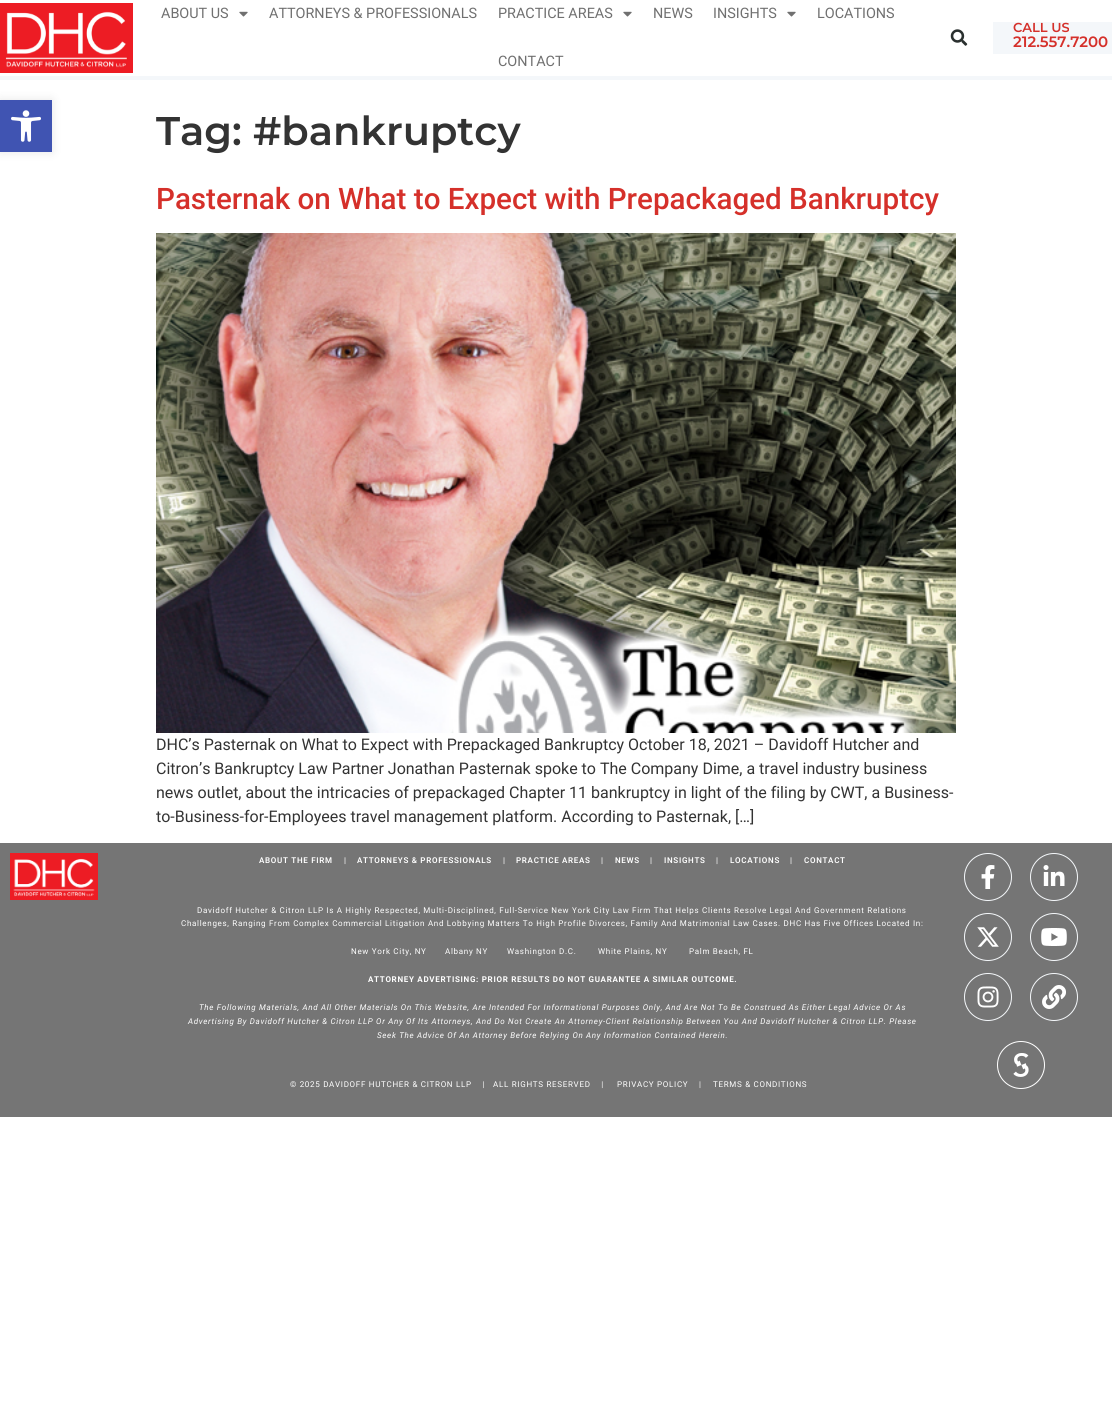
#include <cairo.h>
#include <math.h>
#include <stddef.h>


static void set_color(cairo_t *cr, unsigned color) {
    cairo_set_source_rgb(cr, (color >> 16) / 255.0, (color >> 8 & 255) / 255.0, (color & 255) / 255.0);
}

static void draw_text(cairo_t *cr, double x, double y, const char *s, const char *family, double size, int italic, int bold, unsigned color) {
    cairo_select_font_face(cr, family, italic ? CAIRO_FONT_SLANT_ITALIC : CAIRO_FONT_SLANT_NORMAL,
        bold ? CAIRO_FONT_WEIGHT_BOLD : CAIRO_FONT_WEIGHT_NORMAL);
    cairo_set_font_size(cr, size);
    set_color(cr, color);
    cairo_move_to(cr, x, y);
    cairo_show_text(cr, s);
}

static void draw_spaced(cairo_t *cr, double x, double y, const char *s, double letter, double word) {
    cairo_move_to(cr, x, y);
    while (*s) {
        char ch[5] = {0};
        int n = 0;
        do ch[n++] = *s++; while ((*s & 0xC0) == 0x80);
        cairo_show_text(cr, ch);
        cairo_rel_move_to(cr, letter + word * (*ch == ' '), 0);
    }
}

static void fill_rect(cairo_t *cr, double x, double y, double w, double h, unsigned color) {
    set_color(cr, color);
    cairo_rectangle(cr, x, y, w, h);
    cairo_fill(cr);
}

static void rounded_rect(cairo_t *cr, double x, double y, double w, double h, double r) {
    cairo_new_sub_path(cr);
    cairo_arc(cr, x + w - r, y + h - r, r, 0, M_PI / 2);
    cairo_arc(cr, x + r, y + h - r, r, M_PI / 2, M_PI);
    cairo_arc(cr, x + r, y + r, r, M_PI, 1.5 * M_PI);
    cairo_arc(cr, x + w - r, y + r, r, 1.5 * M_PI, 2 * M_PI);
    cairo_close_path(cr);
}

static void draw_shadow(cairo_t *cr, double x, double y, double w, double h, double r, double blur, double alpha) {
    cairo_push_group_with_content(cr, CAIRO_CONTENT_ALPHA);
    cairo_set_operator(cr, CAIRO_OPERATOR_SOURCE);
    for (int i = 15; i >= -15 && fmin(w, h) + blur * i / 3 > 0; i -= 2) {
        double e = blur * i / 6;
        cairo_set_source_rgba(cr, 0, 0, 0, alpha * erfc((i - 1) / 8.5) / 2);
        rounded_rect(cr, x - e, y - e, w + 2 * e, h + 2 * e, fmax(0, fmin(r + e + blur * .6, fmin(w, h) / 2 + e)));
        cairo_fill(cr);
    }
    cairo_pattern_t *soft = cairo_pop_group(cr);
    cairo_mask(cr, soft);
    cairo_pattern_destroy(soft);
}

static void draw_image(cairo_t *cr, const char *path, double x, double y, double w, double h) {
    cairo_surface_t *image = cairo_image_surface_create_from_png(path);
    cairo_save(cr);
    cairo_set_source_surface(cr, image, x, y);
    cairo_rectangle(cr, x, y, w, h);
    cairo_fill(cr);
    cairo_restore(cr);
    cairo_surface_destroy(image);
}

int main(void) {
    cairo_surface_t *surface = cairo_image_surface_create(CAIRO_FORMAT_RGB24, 1112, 1417);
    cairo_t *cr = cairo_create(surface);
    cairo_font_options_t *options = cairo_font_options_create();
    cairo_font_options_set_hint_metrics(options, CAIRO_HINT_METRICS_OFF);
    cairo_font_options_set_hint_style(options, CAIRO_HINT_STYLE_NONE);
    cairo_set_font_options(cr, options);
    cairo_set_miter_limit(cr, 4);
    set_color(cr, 0xFFFFFF);
    cairo_paint(cr);
    fill_rect(cr, 0, 76, 1112, 4, 0xF4F7FA);
    draw_image(cr, "assets/img1.png", 0, 3, 133, 70);
    draw_text(cr, 161, 18, "ABOUT US", "Roboto", 14.4, 0, 0, 0x707070);
    draw_image(cr, "assets/img2.png", 239, 11, 9, 6);
    draw_text(cr, 269, 18, "ATTORNEYS & PROFESSIONALS", "Roboto", 14.4, 0, 0, 0x707070);
    draw_text(cr, 498, 18, "PRACTICE AREAS", "Roboto", 14.4, 0, 0, 0x707070);
    draw_image(cr, "assets/img2.png", 623, 11, 9, 6);
    draw_text(cr, 653, 18, "NEWS", "Roboto", 14.4, 0, 0, 0x707070);
    draw_text(cr, 713, 18, "INSIGHTS", "Roboto", 14.4, 0, 0, 0x707070);
    draw_image(cr, "assets/img2.png", 787, 11, 9, 6);
    draw_text(cr, 817, 18, "LOCATIONS", "Roboto", 14.4, 0, 0, 0x707070);
    draw_text(cr, 498, 66, "CONTACT", "Roboto", 14.4, 0, 0, 0x707070);
    draw_image(cr, "assets/img3.png", 950, 29, 18, 17);
    fill_rect(cr, 993, 22, 119, 32, 0xF4F7FA);
    draw_text(cr, 1013, 32, "CALL US", "Montserrat SemiBold", 13, 0, 0, 0xD5302A);
    draw_text(cr, 1013, 47, "212.557.7200", "Montserrat SemiBold", 15, 0, 0, 0xD5302A);
    set_color(cr, 0x000000);
    draw_shadow(cr, 0, 100, 52, 52, 0, 5, 0.1);
    fill_rect(cr, 0, 100, 52, 52, 0x4054B2);
    draw_image(cr, "assets/img4.png", 11, 110, 30, 32);
    draw_text(cr, 156, 145, "Tag: #bankruptcy", "Montserrat SemiBold", 40, 0, 0, 0x333333);
    draw_text(cr, 156, 209, "Pasternak on What to Expect with Prepackaged Bankruptcy", "Roboto Medium", 29.6, 0, 0, 0xD5302A);
    draw_image(cr, "assets/img5.png", 156, 233, 800, 500);
    draw_text(cr, 156, 750, "DHC’s Pasternak on What to Expect with Prepackaged Bankruptcy October 18, 2021 – Davidoff Hutcher and", "Roboto", 16, 0, 0, 0x333333);
    draw_text(cr, 156, 774, "Citron’s Bankruptcy Law Partner Jonathan Pasternak spoke to The Company Dime, a travel industry business", "Roboto", 16, 0, 0, 0x333333);
    draw_text(cr, 156, 798, "news outlet, about the intricacies of prepackaged Chapter 11 bankruptcy in light of the filing by CWT, a Business-", "Roboto", 16, 0, 0, 0x333333);
    draw_text(cr, 156, 822, "to-Business-for-Employees travel management platform. According to Pasternak, […]", "Roboto", 16, 0, 0, 0x333333);
    fill_rect(cr, 0, 843, 1112, 274, 0x757575);
    draw_image(cr, "assets/img6.png", 10, 853, 88, 47);
    cairo_select_font_face(cr, "Roboto SemiBold", CAIRO_FONT_SLANT_NORMAL, CAIRO_FONT_WEIGHT_NORMAL);
    cairo_set_font_size(cr, 8);
    set_color(cr, 0xFFFFFF);
    draw_spaced(cr, 259, 863, "ABOUT THE FIRM", 0.7, 0);
    draw_spaced(cr, 344, 863, "|", 0.7, 0);
    draw_spaced(cr, 357, 863, "ATTORNEYS & PROFESSIONALS", 0.7, 0);
    draw_spaced(cr, 503, 863, "|", 0.7, 0);
    draw_spaced(cr, 516, 863, "PRACTICE AREAS", 0.7, 0);
    draw_spaced(cr, 601, 863, "|", 0.7, 0);
    draw_spaced(cr, 615, 863, "NEWS", 0.7, 0);
    draw_spaced(cr, 650, 863, "|", 0.7, 0);
    draw_spaced(cr, 664, 863, "INSIGHTS", 0.7, 0);
    draw_spaced(cr, 716, 863, "|", 0.7, 0);
    draw_spaced(cr, 730, 863, "LOCATIONS", 0.7, 0);
    draw_spaced(cr, 790, 863, "|", 0.7, 0);
    draw_spaced(cr, 804, 863, "CONTACT", 0.7, 0);
    cairo_select_font_face(cr, "Roboto", CAIRO_FONT_SLANT_NORMAL, CAIRO_FONT_WEIGHT_NORMAL);
    draw_spaced(cr, 197, 913, "Davidoff Hutcher & Citron LLP Is A Highly Respected, Multi-Disciplined, Full-Service New York City Law Firm That Helps Clients Resolve Legal And Government Relations", 0.7, 0);
    draw_spaced(cr, 181, 926, "Challenges, Ranging From Complex Commercial Litigation And Lobbying Matters To High Profile Divorces, Family And Matrimonial Law Cases. DHC Has Five Offices Located In:", 0.7, 0);
    draw_spaced(cr, 351, 954, "New York City, NY", 0.7, 0);
    draw_spaced(cr, 445, 954, "Albany NY", 0.7, 0);
    draw_spaced(cr, 507, 954, "Washington D.C.", 0.7, 0);
    draw_spaced(cr, 598, 954, "White Plains, NY", 0.7, 0);
    draw_spaced(cr, 689, 954, "Palm Beach, FL", 0.7, 0);
    cairo_select_font_face(cr, "Roboto", CAIRO_FONT_SLANT_NORMAL, CAIRO_FONT_WEIGHT_BOLD);
    draw_spaced(cr, 368, 982, "ATTORNEY ADVERTISING: PRIOR RESULTS DO NOT GUARANTEE A SIMILAR OUTCOME.", 0.7, 0);
    cairo_select_font_face(cr, "Roboto", CAIRO_FONT_SLANT_ITALIC, CAIRO_FONT_WEIGHT_NORMAL);
    draw_spaced(cr, 199, 1010, "The Following Materials, And All Other Materials On This Website, Are Intended For Informational Purposes Only, And Are Not To Be Construed As Either Legal Advice Or As", 0.7, 0);
    draw_spaced(cr, 188, 1024, "Advertising By Davidoff Hutcher & Citron LLP Or Any Of Its Attorneys, And Do Not Create An Attorney-Client Relationship Between You And Davidoff Hutcher & Citron LLP. Please", 0.7, 0);
    draw_spaced(cr, 377, 1038, "Seek The Advice Of An Attorney Before Relying On Any Information Contained Herein.", 0.7, 0);
    cairo_select_font_face(cr, "Roboto", CAIRO_FONT_SLANT_NORMAL, CAIRO_FONT_WEIGHT_NORMAL);
    draw_spaced(cr, 290, 1087, "© 2025 DAVIDOFF HUTCHER & CITRON LLP    |   ALL RIGHTS RESERVED    |", 0.7, 0);
    draw_spaced(cr, 617, 1087, "PRIVACY POLICY", 0.7, 0);
    draw_spaced(cr, 699, 1087, "|", 0.7, 0);
    draw_spaced(cr, 713, 1087, "TERMS & CONDITIONS", 0.7, 0);
    cairo_new_path(cr);
    cairo_arc(cr, 988, 877, 23.5, 0, 2 * M_PI);
    set_color(cr, 0xF4F7FA);
    cairo_set_line_width(cr, 1);
    cairo_stroke(cr);
    draw_image(cr, "assets/img7.png", 981, 865, 14, 24);
    cairo_arc(cr, 1054, 877, 23.5, 0, 2 * M_PI);
    cairo_stroke(cr);
    draw_image(cr, "assets/img8.png", 1043, 865, 22, 21);
    cairo_arc(cr, 988, 937, 23.5, 0, 2 * M_PI);
    cairo_stroke(cr);
    draw_image(cr, "assets/img9.png", 977, 927, 22, 20);
    cairo_arc(cr, 1054, 937, 23.5, 0, 2 * M_PI);
    cairo_stroke(cr);
    draw_image(cr, "assets/img10.png", 1041, 928, 26, 18);
    cairo_arc(cr, 988, 997, 23.5, 0, 2 * M_PI);
    cairo_stroke(cr);
    draw_image(cr, "assets/img11.png", 977, 986, 22, 22);
    cairo_arc(cr, 1054, 997, 23.5, 0, 2 * M_PI);
    cairo_stroke(cr);
    draw_image(cr, "assets/img12.png", 1042, 985, 24, 24);
    draw_image(cr, "assets/img13.png", 997, 1041, 48, 48);
    cairo_surface_write_to_png(surface, "output.png");
    cairo_font_options_destroy(options);
    cairo_destroy(cr);
    cairo_surface_destroy(surface);
    return 0;
}
